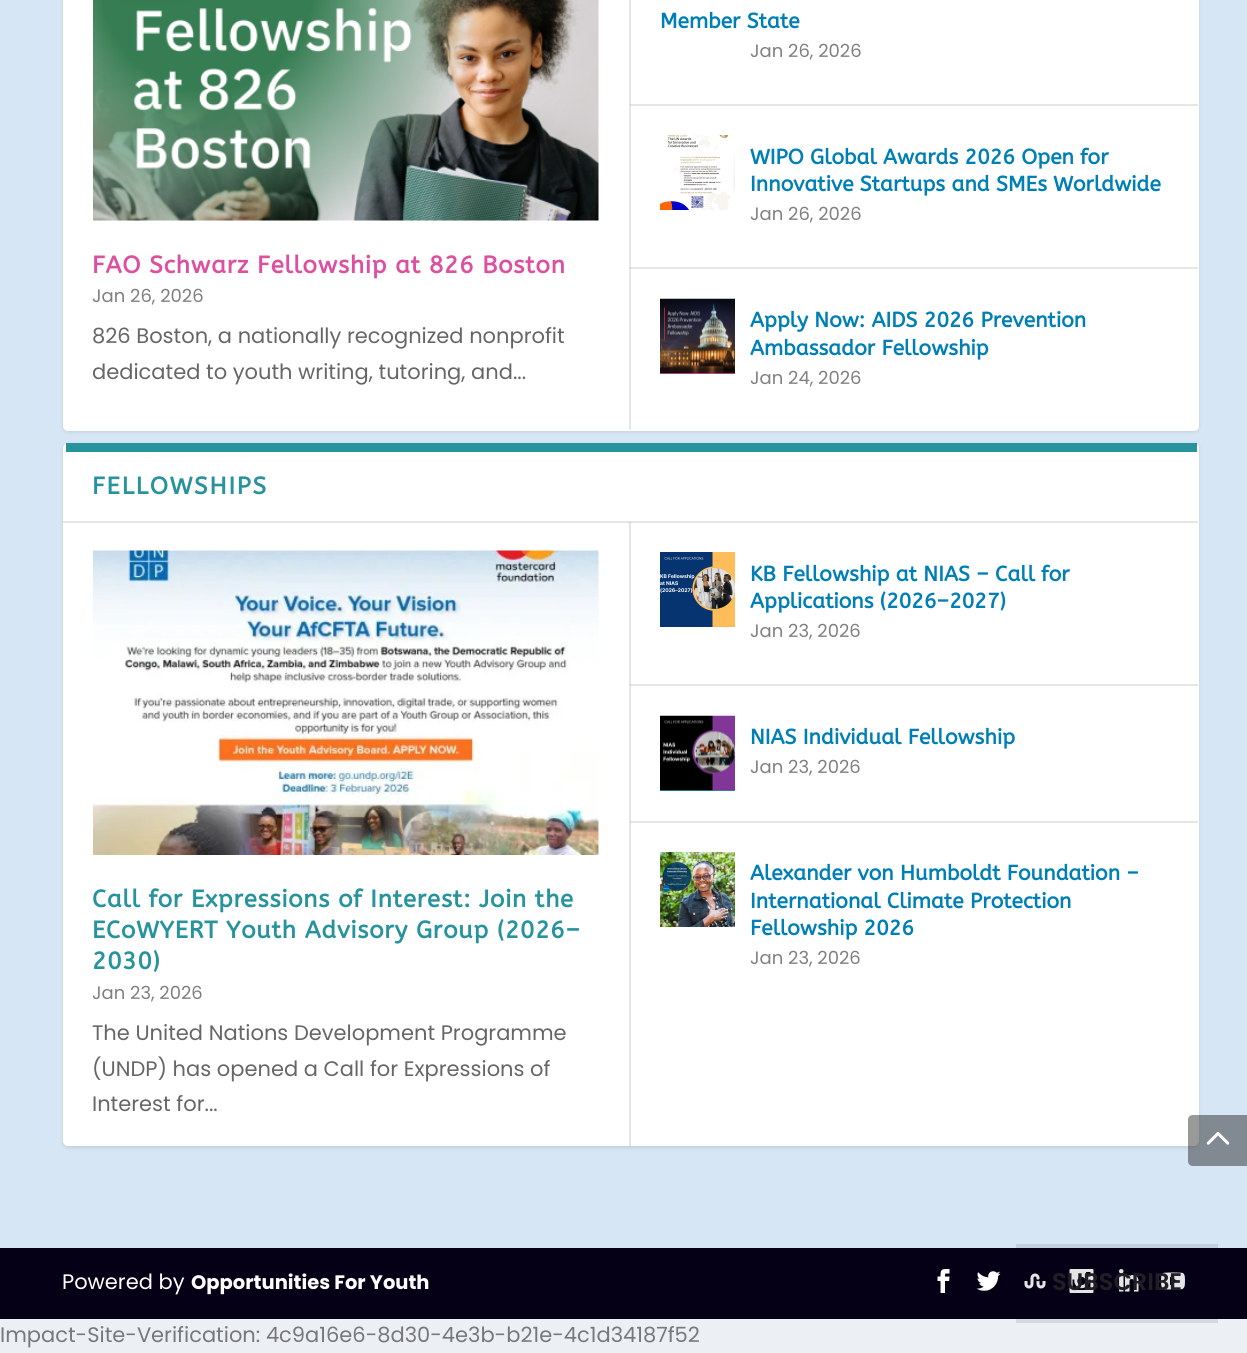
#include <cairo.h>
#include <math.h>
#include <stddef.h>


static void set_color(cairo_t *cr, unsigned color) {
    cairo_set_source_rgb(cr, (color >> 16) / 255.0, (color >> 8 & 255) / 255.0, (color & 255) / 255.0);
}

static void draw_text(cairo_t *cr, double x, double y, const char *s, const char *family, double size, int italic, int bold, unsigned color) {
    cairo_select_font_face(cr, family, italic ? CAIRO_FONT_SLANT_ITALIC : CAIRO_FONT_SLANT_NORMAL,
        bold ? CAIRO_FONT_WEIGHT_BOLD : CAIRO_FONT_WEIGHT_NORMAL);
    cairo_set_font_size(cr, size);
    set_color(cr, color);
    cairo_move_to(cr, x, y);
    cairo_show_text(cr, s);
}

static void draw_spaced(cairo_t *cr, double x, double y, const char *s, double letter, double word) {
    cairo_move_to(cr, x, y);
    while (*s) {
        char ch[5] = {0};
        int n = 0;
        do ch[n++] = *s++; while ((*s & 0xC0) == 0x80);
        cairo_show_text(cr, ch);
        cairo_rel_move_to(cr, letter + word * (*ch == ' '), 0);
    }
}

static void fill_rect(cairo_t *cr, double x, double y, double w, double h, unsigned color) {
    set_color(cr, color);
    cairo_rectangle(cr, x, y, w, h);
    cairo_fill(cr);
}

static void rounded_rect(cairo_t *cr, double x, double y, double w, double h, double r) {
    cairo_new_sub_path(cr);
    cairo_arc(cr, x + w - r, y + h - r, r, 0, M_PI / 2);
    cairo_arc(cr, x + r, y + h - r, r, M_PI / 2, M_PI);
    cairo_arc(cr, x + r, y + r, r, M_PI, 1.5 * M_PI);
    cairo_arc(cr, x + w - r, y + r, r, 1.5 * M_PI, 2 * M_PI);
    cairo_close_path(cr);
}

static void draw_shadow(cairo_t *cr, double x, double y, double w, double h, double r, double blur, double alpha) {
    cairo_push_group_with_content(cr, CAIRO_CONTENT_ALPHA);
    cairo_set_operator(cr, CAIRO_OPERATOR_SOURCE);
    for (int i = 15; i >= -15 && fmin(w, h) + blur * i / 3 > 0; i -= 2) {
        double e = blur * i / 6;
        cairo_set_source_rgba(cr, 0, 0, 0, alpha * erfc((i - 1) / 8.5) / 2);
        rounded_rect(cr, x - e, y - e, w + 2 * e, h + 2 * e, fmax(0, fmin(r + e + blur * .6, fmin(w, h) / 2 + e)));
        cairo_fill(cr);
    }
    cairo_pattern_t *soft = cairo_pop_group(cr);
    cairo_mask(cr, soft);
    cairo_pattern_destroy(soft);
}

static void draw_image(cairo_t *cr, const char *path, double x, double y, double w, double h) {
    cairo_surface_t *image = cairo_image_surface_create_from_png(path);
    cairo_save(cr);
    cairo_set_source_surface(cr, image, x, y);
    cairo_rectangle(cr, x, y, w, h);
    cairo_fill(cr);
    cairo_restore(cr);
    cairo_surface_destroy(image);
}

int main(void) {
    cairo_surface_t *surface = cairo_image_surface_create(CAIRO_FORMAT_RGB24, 1247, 1353);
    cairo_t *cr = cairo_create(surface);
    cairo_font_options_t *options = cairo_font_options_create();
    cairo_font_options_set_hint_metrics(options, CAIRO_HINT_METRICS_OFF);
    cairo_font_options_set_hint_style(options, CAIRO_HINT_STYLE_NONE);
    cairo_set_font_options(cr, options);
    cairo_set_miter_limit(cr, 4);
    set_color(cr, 0xECF0F5);
    cairo_paint(cr);
    fill_rect(cr, 1016, 1319, 202, 4, 0xD4D8DD);
    fill_rect(cr, 0, 0, 1247, 1248, 0xD7E6F4);
    fill_rect(cr, 1016, 1244, 202, 4, 0xC2CFDC);
    set_color(cr, 0x000000);
    draw_shadow(cr, 63, -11, 1136, 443, 5, 2, 0.1);
    set_color(cr, 0xFFFFFF);
    rounded_rect(cr, 63, -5, 1136, 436, 5);
    cairo_fill(cr);
    fill_rect(cr, 630, 267, 568, 2, 0xE6E6E6);
    fill_rect(cr, 630, 104, 568, 2, 0xE6E6E6);
    fill_rect(cr, 629, 0, 2, 430, 0xE6E6E6);
    fill_rect(cr, 630, 267, 1, 2, 0xCFCFCF);
    fill_rect(cr, 630, 104, 1, 2, 0xCFCFCF);
    draw_image(cr, "assets/img1.png", 93, 0, 506, 221);
    cairo_select_font_face(cr, "ABeeZee", CAIRO_FONT_SLANT_NORMAL, CAIRO_FONT_WEIGHT_BOLD);
    cairo_set_font_size(cr, 24);
    set_color(cr, 0xDC509F);
    draw_spaced(cr, 92, 273, "FAO Schwarz Fellowship at 826 Boston", 0.75, 0);
    draw_text(cr, 92, 302, "Jan 26, 2026", "Poppins", 18, 0, 0, 0x808080);
    draw_text(cr, 92, 343, "826 Boston, a nationally recognized nonprofit", "Poppins", 21, 0, 0, 0x666666);
    draw_text(cr, 92, 379, "dedicated to youth writing, tutoring, and...", "Poppins", 21, 0, 0, 0x666666);
    draw_text(cr, 660, 28, "Member State", "ABeeZee", 21, 0, 1, 0x007FB7);
    draw_text(cr, 750, 57, "Jan 26, 2026", "Poppins", 18, 0, 0, 0x808080);
    draw_image(cr, "assets/img2.png", 660, 135, 75, 75);
    draw_text(cr, 750, 164, "WIPO Global Awards 2026 Open for", "ABeeZee", 21, 0, 1, 0x007FB7);
    draw_text(cr, 750, 191, "Innovative Startups and SMEs Worldwide", "ABeeZee", 21, 0, 1, 0x007FB7);
    draw_text(cr, 750, 220, "Jan 26, 2026", "Poppins", 18, 0, 0, 0x808080);
    fill_rect(cr, 660, 373, 75, 1, 0xDC509F);
    draw_image(cr, "assets/img3.png", 660, 298, 75, 76);
    draw_text(cr, 750, 327, "Apply Now: AIDS 2026 Prevention", "ABeeZee", 21, 0, 1, 0x007FB7);
    draw_text(cr, 750, 355, "Ambassador Fellowship", "ABeeZee", 21, 0, 1, 0x007FB7);
    draw_text(cr, 750, 384, "Jan 24, 2026", "Poppins", 18, 0, 0, 0x808080);
    set_color(cr, 0x000000);
    draw_shadow(cr, 63, 444, 1136, 704, 5, 2, 0.1);
    set_color(cr, 0xFFFFFF);
    rounded_rect(cr, 63, 443, 1136, 703, 5);
    cairo_fill(cr);
    fill_rect(cr, 630, 821, 568, 2, 0xE6E6E6);
    fill_rect(cr, 630, 684, 568, 2, 0xE6E6E6);
    fill_rect(cr, 629, 522, 2, 624, 0xE6E6E6);
    fill_rect(cr, 630, 821, 1, 2, 0xCFCFCF);
    fill_rect(cr, 630, 684, 1, 2, 0xCFCFCF);
    fill_rect(cr, 66, 443, 1131, 9, 0x27939D);
    fill_rect(cr, 63, 521, 1135, 2, 0xE6E6E6);
    fill_rect(cr, 629, 522, 2, 1, 0xCFCFCF);
    cairo_select_font_face(cr, "ABeeZee", CAIRO_FONT_SLANT_NORMAL, CAIRO_FONT_WEIGHT_BOLD);
    cairo_set_font_size(cr, 24);
    set_color(cr, 0x27939D);
    draw_spaced(cr, 92, 494, "FELLOWSHIPS", 1.75, 0);
    draw_image(cr, "assets/img4.png", 660, 552, 75, 75);
    draw_text(cr, 750, 581, "KB Fellowship at NIAS – Call for", "ABeeZee", 21, 0, 1, 0x007FB7);
    draw_text(cr, 750, 608, "Applications (2026–2027)", "ABeeZee", 21, 0, 1, 0x007FB7);
    draw_text(cr, 750, 637, "Jan 23, 2026", "Poppins", 18, 0, 0, 0x808080);
    fill_rect(cr, 660, 790, 75, 1, 0x27939D);
    draw_image(cr, "assets/img5.png", 660, 715, 75, 76);
    draw_text(cr, 750, 744, "NIAS Individual Fellowship", "ABeeZee", 21, 0, 1, 0x007FB7);
    draw_text(cr, 750, 773, "Jan 23, 2026", "Poppins", 18, 0, 0, 0x808080);
    draw_image(cr, "assets/img6.png", 660, 852, 75, 75);
    draw_text(cr, 750, 880, "Alexander von Humboldt Foundation –", "ABeeZee", 21, 0, 1, 0x007FB7);
    draw_text(cr, 750, 908, "International Climate Protection", "ABeeZee", 21, 0, 1, 0x007FB7);
    draw_text(cr, 750, 935, "Fellowship 2026", "ABeeZee", 21, 0, 1, 0x007FB7);
    draw_text(cr, 750, 964, "Jan 23, 2026", "Poppins", 18, 0, 0, 0x808080);
    draw_image(cr, "assets/img7.png", 93, 550, 506, 305);
    cairo_select_font_face(cr, "ABeeZee", CAIRO_FONT_SLANT_NORMAL, CAIRO_FONT_WEIGHT_BOLD);
    cairo_set_font_size(cr, 24);
    set_color(cr, 0x27939D);
    draw_spaced(cr, 92, 907, "Call for Expressions of Interest: Join the", 0.75, 0);
    draw_spaced(cr, 92, 938, "ECoWYERT Youth Advisory Group (2026–", 0.75, 0);
    draw_spaced(cr, 92, 969, "2030)", 0.75, 0);
    draw_text(cr, 92, 999, "Jan 23, 2026", "Poppins", 18, 0, 0, 0x808080);
    draw_text(cr, 92, 1040, "The United Nations Development Programme", "Poppins", 21, 0, 0, 0x666666);
    draw_text(cr, 92, 1076, "(UNDP) has opened a Call for Expressions of", "Poppins", 21, 0, 0, 0x666666);
    draw_text(cr, 92, 1111, "Interest for...", "Poppins", 21, 0, 0, 0x666666);
    fill_rect(cr, 0, 1248, 1247, 71, 0x050016);
    draw_text(cr, 62, 1289, "Powered by", "Poppins", 21, 0, 0, 0xFFFFFF);
    draw_text(cr, 191, 1289, "Opportunities For Youth", "Poppins", 19.5, 0, 1, 0xFFFFFF);
    draw_image(cr, "assets/img8.png", 937, 1269, 13, 24);
    draw_image(cr, "assets/img9.png", 976, 1271, 25, 20);
    draw_image(cr, "assets/img10.png", 1024, 1273, 22, 16);
    draw_image(cr, "assets/img11.png", 1069, 1269, 25, 24);
    draw_image(cr, "assets/img12.png", 1119, 1269, 20, 23);
    draw_image(cr, "assets/img13.png", 1161, 1272, 24, 18);
    cairo_set_source_rgba(cr, 0, 0, 0, 0.4);
    cairo_new_path(cr);
    cairo_move_to(cr, 1193, 1115);
    cairo_line_to(cr, 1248, 1115);
    cairo_line_to(cr, 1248, 1166);
    cairo_line_to(cr, 1193, 1166);
    cairo_curve_to(cr, 1190, 1166, 1188, 1164, 1188, 1161);
    cairo_line_to(cr, 1188, 1120);
    cairo_curve_to(cr, 1188, 1117, 1190, 1115, 1193, 1115);
    cairo_close_path(cr);
    cairo_fill(cr);
    draw_image(cr, "assets/img14.png", 1206, 1132, 24, 13);
    draw_text(cr, 1052, 1290, "SUBSCRIBE", "Poppins SemiBold", 24, 0, 0, 0x201F24);
    draw_text(cr, 0, 1342, "Impact-Site-Verification: 4c9a16e6-8d30-4e3b-b21e-4c1d34187f52", "Poppins", 21, 0, 0, 0x76787B);
    cairo_surface_write_to_png(surface, "output.png");
    cairo_font_options_destroy(options);
    cairo_destroy(cr);
    cairo_surface_destroy(surface);
    return 0;
}
